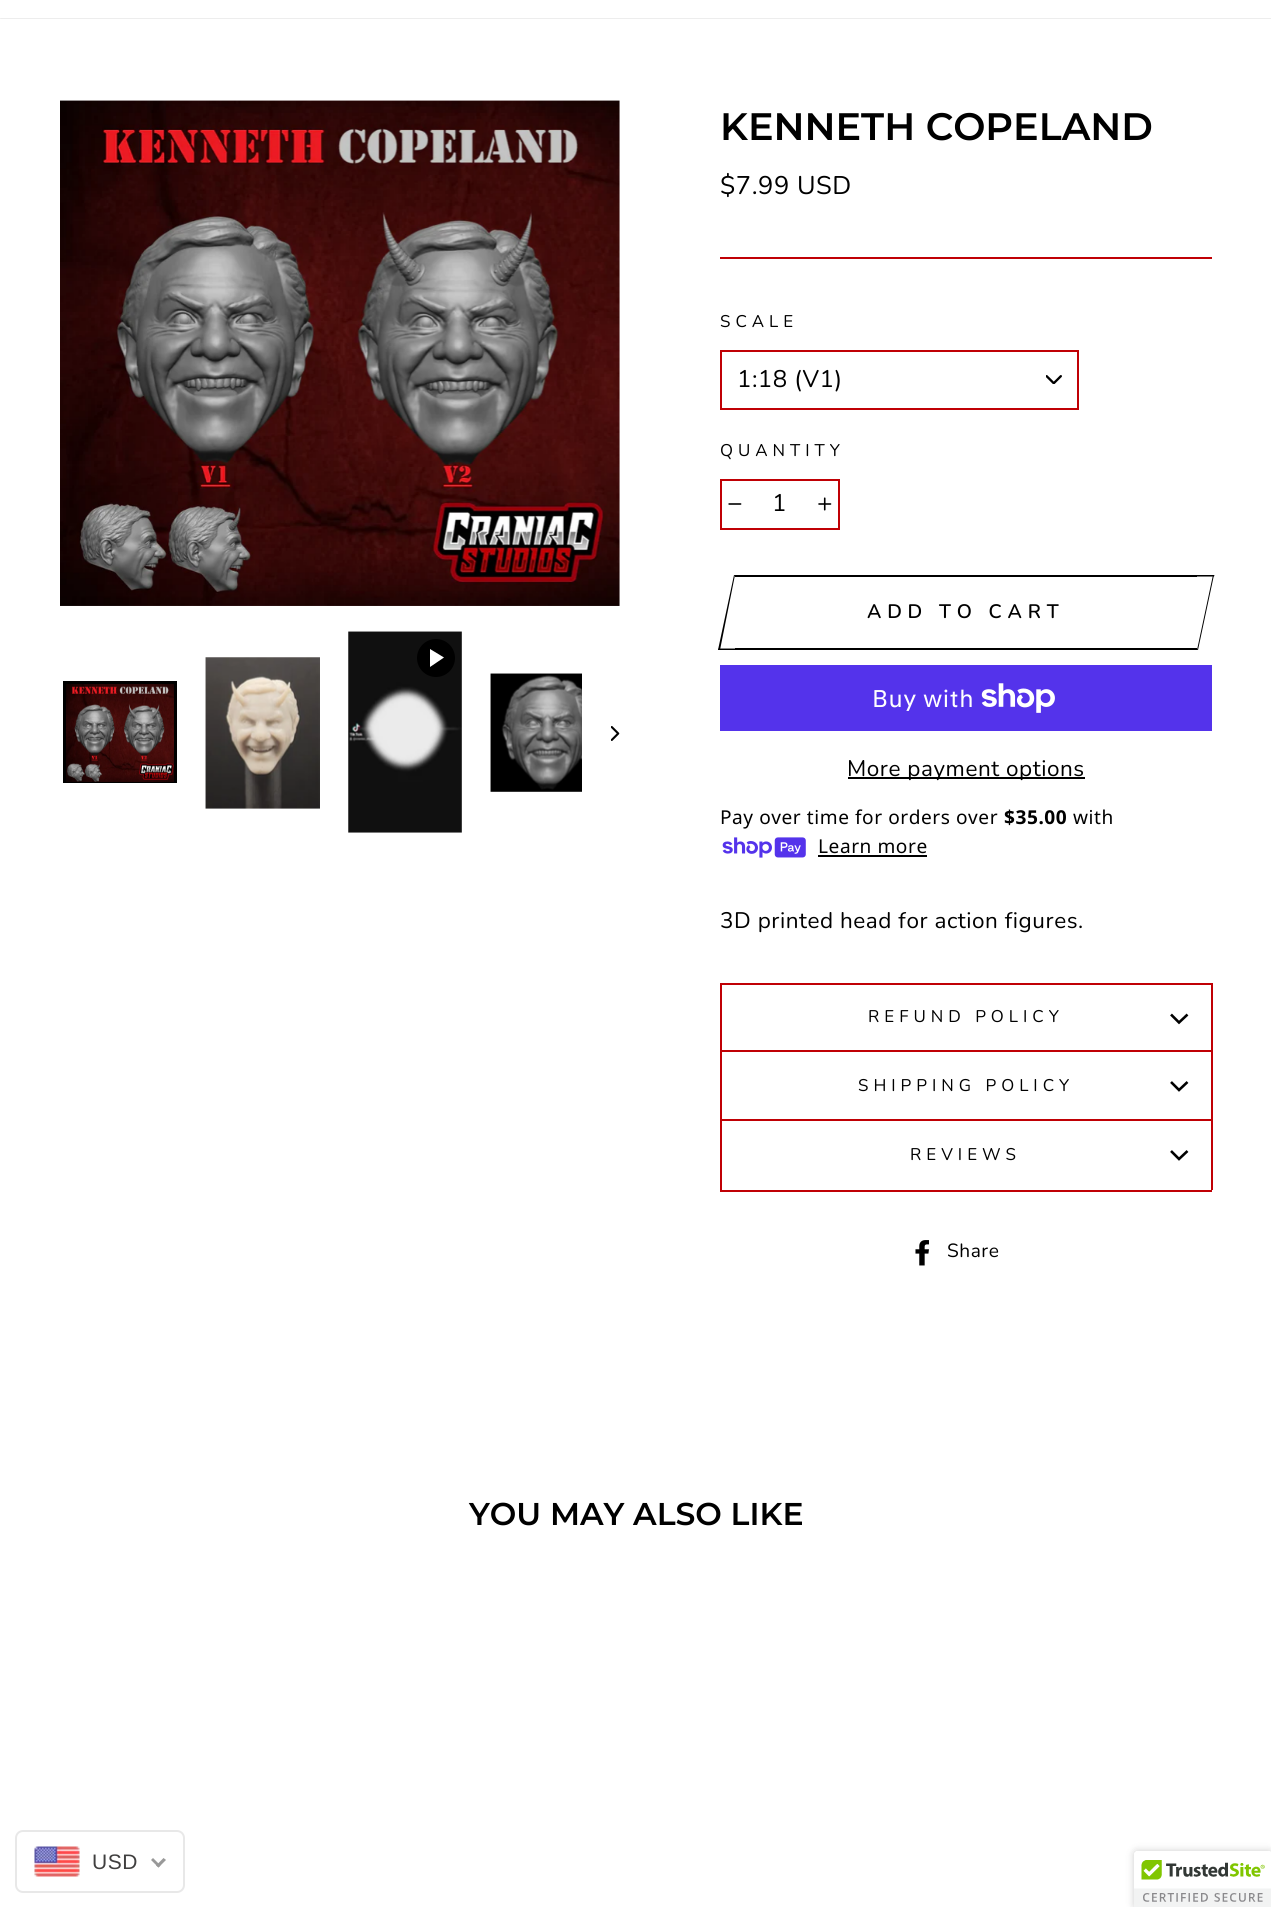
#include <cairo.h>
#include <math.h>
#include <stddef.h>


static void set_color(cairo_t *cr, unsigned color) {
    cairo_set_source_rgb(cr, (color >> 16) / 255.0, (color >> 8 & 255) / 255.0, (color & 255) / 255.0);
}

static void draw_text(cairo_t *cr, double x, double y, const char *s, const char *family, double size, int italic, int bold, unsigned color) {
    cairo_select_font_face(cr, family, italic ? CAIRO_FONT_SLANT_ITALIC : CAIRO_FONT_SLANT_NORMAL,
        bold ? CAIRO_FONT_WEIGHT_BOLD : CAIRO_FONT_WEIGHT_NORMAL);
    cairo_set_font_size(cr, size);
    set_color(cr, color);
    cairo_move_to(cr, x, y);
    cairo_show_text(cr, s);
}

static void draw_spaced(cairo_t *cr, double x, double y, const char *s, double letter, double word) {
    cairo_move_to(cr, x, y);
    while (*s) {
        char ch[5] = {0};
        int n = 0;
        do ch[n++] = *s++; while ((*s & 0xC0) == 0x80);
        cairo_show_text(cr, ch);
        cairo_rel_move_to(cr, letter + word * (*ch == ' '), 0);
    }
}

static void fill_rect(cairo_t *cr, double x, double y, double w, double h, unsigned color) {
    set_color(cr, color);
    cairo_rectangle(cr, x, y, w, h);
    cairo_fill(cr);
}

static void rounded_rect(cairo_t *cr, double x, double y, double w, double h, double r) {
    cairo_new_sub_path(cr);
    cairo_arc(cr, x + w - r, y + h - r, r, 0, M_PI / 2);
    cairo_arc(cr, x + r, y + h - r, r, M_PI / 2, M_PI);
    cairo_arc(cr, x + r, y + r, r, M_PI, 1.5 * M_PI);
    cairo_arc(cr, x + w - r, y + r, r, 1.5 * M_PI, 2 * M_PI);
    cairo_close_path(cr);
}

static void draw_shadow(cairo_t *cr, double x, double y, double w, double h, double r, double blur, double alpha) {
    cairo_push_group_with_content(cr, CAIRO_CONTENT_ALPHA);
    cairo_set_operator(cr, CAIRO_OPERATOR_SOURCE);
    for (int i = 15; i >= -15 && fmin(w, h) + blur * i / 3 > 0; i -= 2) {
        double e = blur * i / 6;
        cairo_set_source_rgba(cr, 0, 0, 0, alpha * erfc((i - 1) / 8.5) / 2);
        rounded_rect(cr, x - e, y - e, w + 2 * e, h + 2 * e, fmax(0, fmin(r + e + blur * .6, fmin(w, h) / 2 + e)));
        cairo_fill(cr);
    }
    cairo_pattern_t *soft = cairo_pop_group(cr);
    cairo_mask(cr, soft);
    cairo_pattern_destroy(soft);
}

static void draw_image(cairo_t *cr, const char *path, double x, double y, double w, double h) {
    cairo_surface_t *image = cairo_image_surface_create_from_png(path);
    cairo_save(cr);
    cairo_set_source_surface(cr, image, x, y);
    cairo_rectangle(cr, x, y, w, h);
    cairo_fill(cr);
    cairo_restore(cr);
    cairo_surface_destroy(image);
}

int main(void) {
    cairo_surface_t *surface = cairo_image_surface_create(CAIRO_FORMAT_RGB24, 1271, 1907);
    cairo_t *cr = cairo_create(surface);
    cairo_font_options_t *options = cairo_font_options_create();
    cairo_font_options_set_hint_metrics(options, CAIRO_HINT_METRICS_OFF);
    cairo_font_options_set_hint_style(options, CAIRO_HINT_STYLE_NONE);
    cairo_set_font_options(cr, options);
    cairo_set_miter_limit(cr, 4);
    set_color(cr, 0xFFFFFF);
    cairo_paint(cr);
    cairo_save(cr);
    cairo_rectangle(cr, 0, 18, 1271, 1);
    cairo_clip(cr);
    set_color(cr, 0x000000);
    draw_shadow(cr, 0, -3, 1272, 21, 0, 1, 0.2);
    cairo_restore(cr);
    draw_image(cr, "assets/img1.png", 60, 100, 560, 506);
    draw_image(cr, "assets/img2.png", 66, 684, 108, 98);
    cairo_save(cr);
    cairo_rectangle(cr, 63, 681, 114, 102);
    cairo_clip(cr);
    cairo_rectangle(cr, 64.5, 682.5, 111, 101);
    set_color(cr, 0x000000);
    cairo_set_line_width(cr, 3);
    cairo_stroke(cr);
    cairo_restore(cr);
    draw_image(cr, "assets/img3.png", 205, 657, 115, 152);
    draw_image(cr, "assets/img4.png", 348, 631, 114, 202);
    set_color(cr, 0x000000);
    cairo_arc(cr, 436, 658, 19, 0, 2 * M_PI);
    cairo_fill(cr);
    set_color(cr, 0xFFFFFF);
    cairo_new_path(cr);
    cairo_move_to(cr, 430, 649);
    cairo_line_to(cr, 430, 667);
    cairo_line_to(cr, 444, 657.5);
    cairo_close_path(cr);
    cairo_fill(cr);
    draw_image(cr, "assets/img5.png", 490, 673, 92, 119);
    draw_image(cr, "assets/img6.png", 611, 726, 9, 15);
    draw_text(cr, 720, 140, "KENNETH COPELAND", "Montserrat SemiBold", 38.25, 0, 0, 0x000000);
    cairo_select_font_face(cr, "Nunito", CAIRO_FONT_SLANT_NORMAL, CAIRO_FONT_WEIGHT_NORMAL);
    cairo_set_font_size(cr, 25.5);
    draw_spaced(cr, 720, 194, "$7.99 USD", 0.55, 0);
    fill_rect(cr, 720, 257, 492, 2, 0xC00005);
    cairo_set_font_size(cr, 16.9);
    set_color(cr, 0x000000);
    draw_spaced(cr, 720, 327, "SCALE", 5, 0);
    draw_image(cr, "assets/img7.png", 1046, 375, 16, 9);
    cairo_rectangle(cr, 721, 351, 357, 58);
    set_color(cr, 0xC00005);
    cairo_stroke(cr);
    cairo_set_font_size(cr, 24);
    set_color(cr, 0x000000);
    draw_spaced(cr, 737, 387, "1:18 (V1)", 0.5, 0);
    cairo_set_font_size(cr, 16.9);
    draw_spaced(cr, 720, 456, "QUANTITY", 5, 0);
    cairo_rectangle(cr, 721, 480, 118, 49);
    set_color(cr, 0xC00005);
    cairo_stroke(cr);
    draw_image(cr, "assets/img8.png", 728, 503, 14, 2);
    cairo_set_font_size(cr, 24);
    set_color(cr, 0x000000);
    draw_spaced(cr, 772, 511, "1", 0.5, 0);
    draw_image(cr, "assets/img9.png", 818, 497, 14, 14);
    fill_rect(cr, 735, 575, 462, 2, 0x000000);
    fill_rect(cr, 735, 648, 462, 2, 0x000000);
    cairo_new_path(cr);
    cairo_move_to(cr, 718.5, 648.5);
    cairo_line_to(cr, 748.5, 648.5);
    cairo_line_to(cr, 748, 650);
    cairo_line_to(cr, 718, 650);
    cairo_close_path(cr);
    cairo_fill(cr);
    cairo_new_path(cr);
    cairo_move_to(cr, 734, 575);
    cairo_line_to(cr, 735, 575);
    cairo_line_to(cr, 720, 650);
    cairo_line_to(cr, 718, 650);
    cairo_close_path(cr);
    cairo_fill(cr);
    cairo_select_font_face(cr, "Nunito SemiBold", CAIRO_FONT_SLANT_NORMAL, CAIRO_FONT_WEIGHT_NORMAL);
    cairo_set_font_size(cr, 19.5);
    draw_spaced(cr, 867, 618, "ADD TO CART", 5.8, 0);
    cairo_new_path(cr);
    cairo_move_to(cr, 1184.5, 575);
    cairo_line_to(cr, 1214.5, 575);
    cairo_line_to(cr, 1214, 576.5);
    cairo_line_to(cr, 1184, 576.5);
    cairo_close_path(cr);
    cairo_fill(cr);
    cairo_new_path(cr);
    cairo_move_to(cr, 1213, 575);
    cairo_line_to(cr, 1214, 575);
    cairo_line_to(cr, 1198, 650);
    cairo_line_to(cr, 1197, 650);
    cairo_close_path(cr);
    cairo_fill(cr);
    fill_rect(cr, 720, 665, 492, 66, 0x5433EB);
    cairo_select_font_face(cr, "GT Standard", CAIRO_FONT_SLANT_NORMAL, CAIRO_FONT_WEIGHT_NORMAL);
    cairo_set_font_size(cr, 24);
    set_color(cr, 0xFFFFFF);
    draw_spaced(cr, 872, 707, "Buy with", 0.55, 0);
    draw_image(cr, "assets/img10.png", 981, 683, 74, 30);
    fill_rect(cr, 848, 777, 237, 2, 0x000000);
    cairo_select_font_face(cr, "Nunito", CAIRO_FONT_SLANT_NORMAL, CAIRO_FONT_WEIGHT_NORMAL);
    cairo_set_font_size(cr, 22.5);
    draw_spaced(cr, 847, 776, "More payment options", 0.55, 0);
    cairo_select_font_face(cr, "Noto Sans", CAIRO_FONT_SLANT_NORMAL, CAIRO_FONT_WEIGHT_NORMAL);
    cairo_set_font_size(cr, 19.1);
    draw_spaced(cr, 720, 824, "Pay over time for orders over", 0.55, 0);
    cairo_select_font_face(cr, "Noto Sans", CAIRO_FONT_SLANT_NORMAL, CAIRO_FONT_WEIGHT_BOLD);
    draw_spaced(cr, 1004, 824, "$35.00", 0.55, 0);
    cairo_select_font_face(cr, "Noto Sans", CAIRO_FONT_SLANT_NORMAL, CAIRO_FONT_WEIGHT_NORMAL);
    draw_spaced(cr, 1073, 824, "with", 0.55, 0);
    draw_image(cr, "assets/img11.png", 722, 837, 84, 21);
    draw_spaced(cr, 818, 853, "Learn more", 0.55, 0);
    fill_rect(cr, 818, 855, 109, 2, 0x000000);
    cairo_select_font_face(cr, "Nunito", CAIRO_FONT_SLANT_NORMAL, CAIRO_FONT_WEIGHT_NORMAL);
    cairo_set_font_size(cr, 22.5);
    draw_spaced(cr, 720, 928, "3D printed head for action figures.", 0.55, 0);
    fill_rect(cr, 720, 1190, 492, 2, 0xC00005);
    fill_rect(cr, 720, 983, 492, 2, 0xC00005);
    fill_rect(cr, 1211, 983, 2, 69, 0xC00005);
    fill_rect(cr, 720, 983, 2, 69, 0xC00005);
    cairo_set_font_size(cr, 16.9);
    set_color(cr, 0x000000);
    draw_spaced(cr, 868, 1022, "REFUND POLICY", 5, 0);
    cairo_new_path(cr);
    cairo_move_to(cr, 1171, 1014.5);
    cairo_line_to(cr, 1179, 1022.5);
    cairo_line_to(cr, 1187.5, 1014.5);
    cairo_set_line_width(cr, 2.6);
    cairo_stroke(cr);
    fill_rect(cr, 720, 1050, 492, 2, 0xC00005);
    fill_rect(cr, 1211, 1050, 2, 71, 0xC00005);
    fill_rect(cr, 720, 1050, 2, 71, 0xC00005);
    set_color(cr, 0x000000);
    draw_spaced(cr, 858, 1091, "SHIPPING POLICY", 5, 0);
    cairo_new_path(cr);
    cairo_move_to(cr, 1171, 1082);
    cairo_line_to(cr, 1179, 1090);
    cairo_line_to(cr, 1187.5, 1082);
    cairo_stroke(cr);
    fill_rect(cr, 720, 1119, 492, 2, 0xC00005);
    fill_rect(cr, 1211, 1119, 2, 71, 0xC00005);
    fill_rect(cr, 720, 1119, 2, 71, 0xC00005);
    set_color(cr, 0x000000);
    draw_spaced(cr, 910, 1160, "REVIEWS", 5, 0);
    cairo_new_path(cr);
    cairo_move_to(cr, 1171, 1151);
    cairo_line_to(cr, 1179, 1159);
    cairo_line_to(cr, 1187.5, 1151);
    cairo_stroke(cr);
    draw_image(cr, "assets/img12.png", 915, 1240, 14, 26);
    cairo_set_font_size(cr, 19.1);
    draw_spaced(cr, 947, 1257, "Share", 0.55, 0);
    draw_text(cr, 469, 1525, "YOU MAY ALSO LIKE", "Montserrat SemiBold", 31.5, 0, 0, 0x000000);
    rounded_rect(cr, 16, 1831, 168, 61, 7);
    set_color(cr, 0xE8E8E8);
    cairo_set_line_width(cr, 2);
    cairo_stroke(cr);
    draw_image(cr, "assets/img13.png", 34, 1846, 46, 31);
    cairo_select_font_face(cr, "Liberation Sans", CAIRO_FONT_SLANT_NORMAL, CAIRO_FONT_WEIGHT_NORMAL);
    cairo_set_font_size(cr, 21);
    set_color(cr, 0x403F3F);
    draw_spaced(cr, 92, 1869, "USD", 0.55, 0);
    set_color(cr, 0x999999);
    cairo_new_path(cr);
    cairo_move_to(cr, 163.5, 1858);
    cairo_line_to(cr, 166, 1860);
    cairo_line_to(cr, 158.5, 1867.5);
    cairo_line_to(cr, 156, 1865.5);
    cairo_close_path(cr);
    cairo_fill(cr);
    cairo_new_path(cr);
    cairo_move_to(cr, 153, 1858);
    cairo_line_to(cr, 160.5, 1865.5);
    cairo_line_to(cr, 158.5, 1867.5);
    cairo_line_to(cr, 151, 1860);
    cairo_close_path(cr);
    cairo_fill(cr);
    set_color(cr, 0x000000);
    draw_shadow(cr, 1134, 1851, 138, 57, 3, 4, 0.2);
    set_color(cr, 0xFFFFFF);
    cairo_new_path(cr);
    cairo_move_to(cr, 1137, 1851);
    cairo_line_to(cr, 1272, 1851);
    cairo_line_to(cr, 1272, 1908);
    cairo_line_to(cr, 1134, 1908);
    cairo_line_to(cr, 1134, 1854);
    cairo_curve_to(cr, 1134, 1852.5, 1135.5, 1851, 1137, 1851);
    cairo_close_path(cr);
    cairo_fill(cr);
    draw_image(cr, "assets/img14.png", 1134, 1851, 137, 56);
    cairo_surface_write_to_png(surface, "output.png");
    cairo_font_options_destroy(options);
    cairo_destroy(cr);
    cairo_surface_destroy(surface);
    return 0;
}
